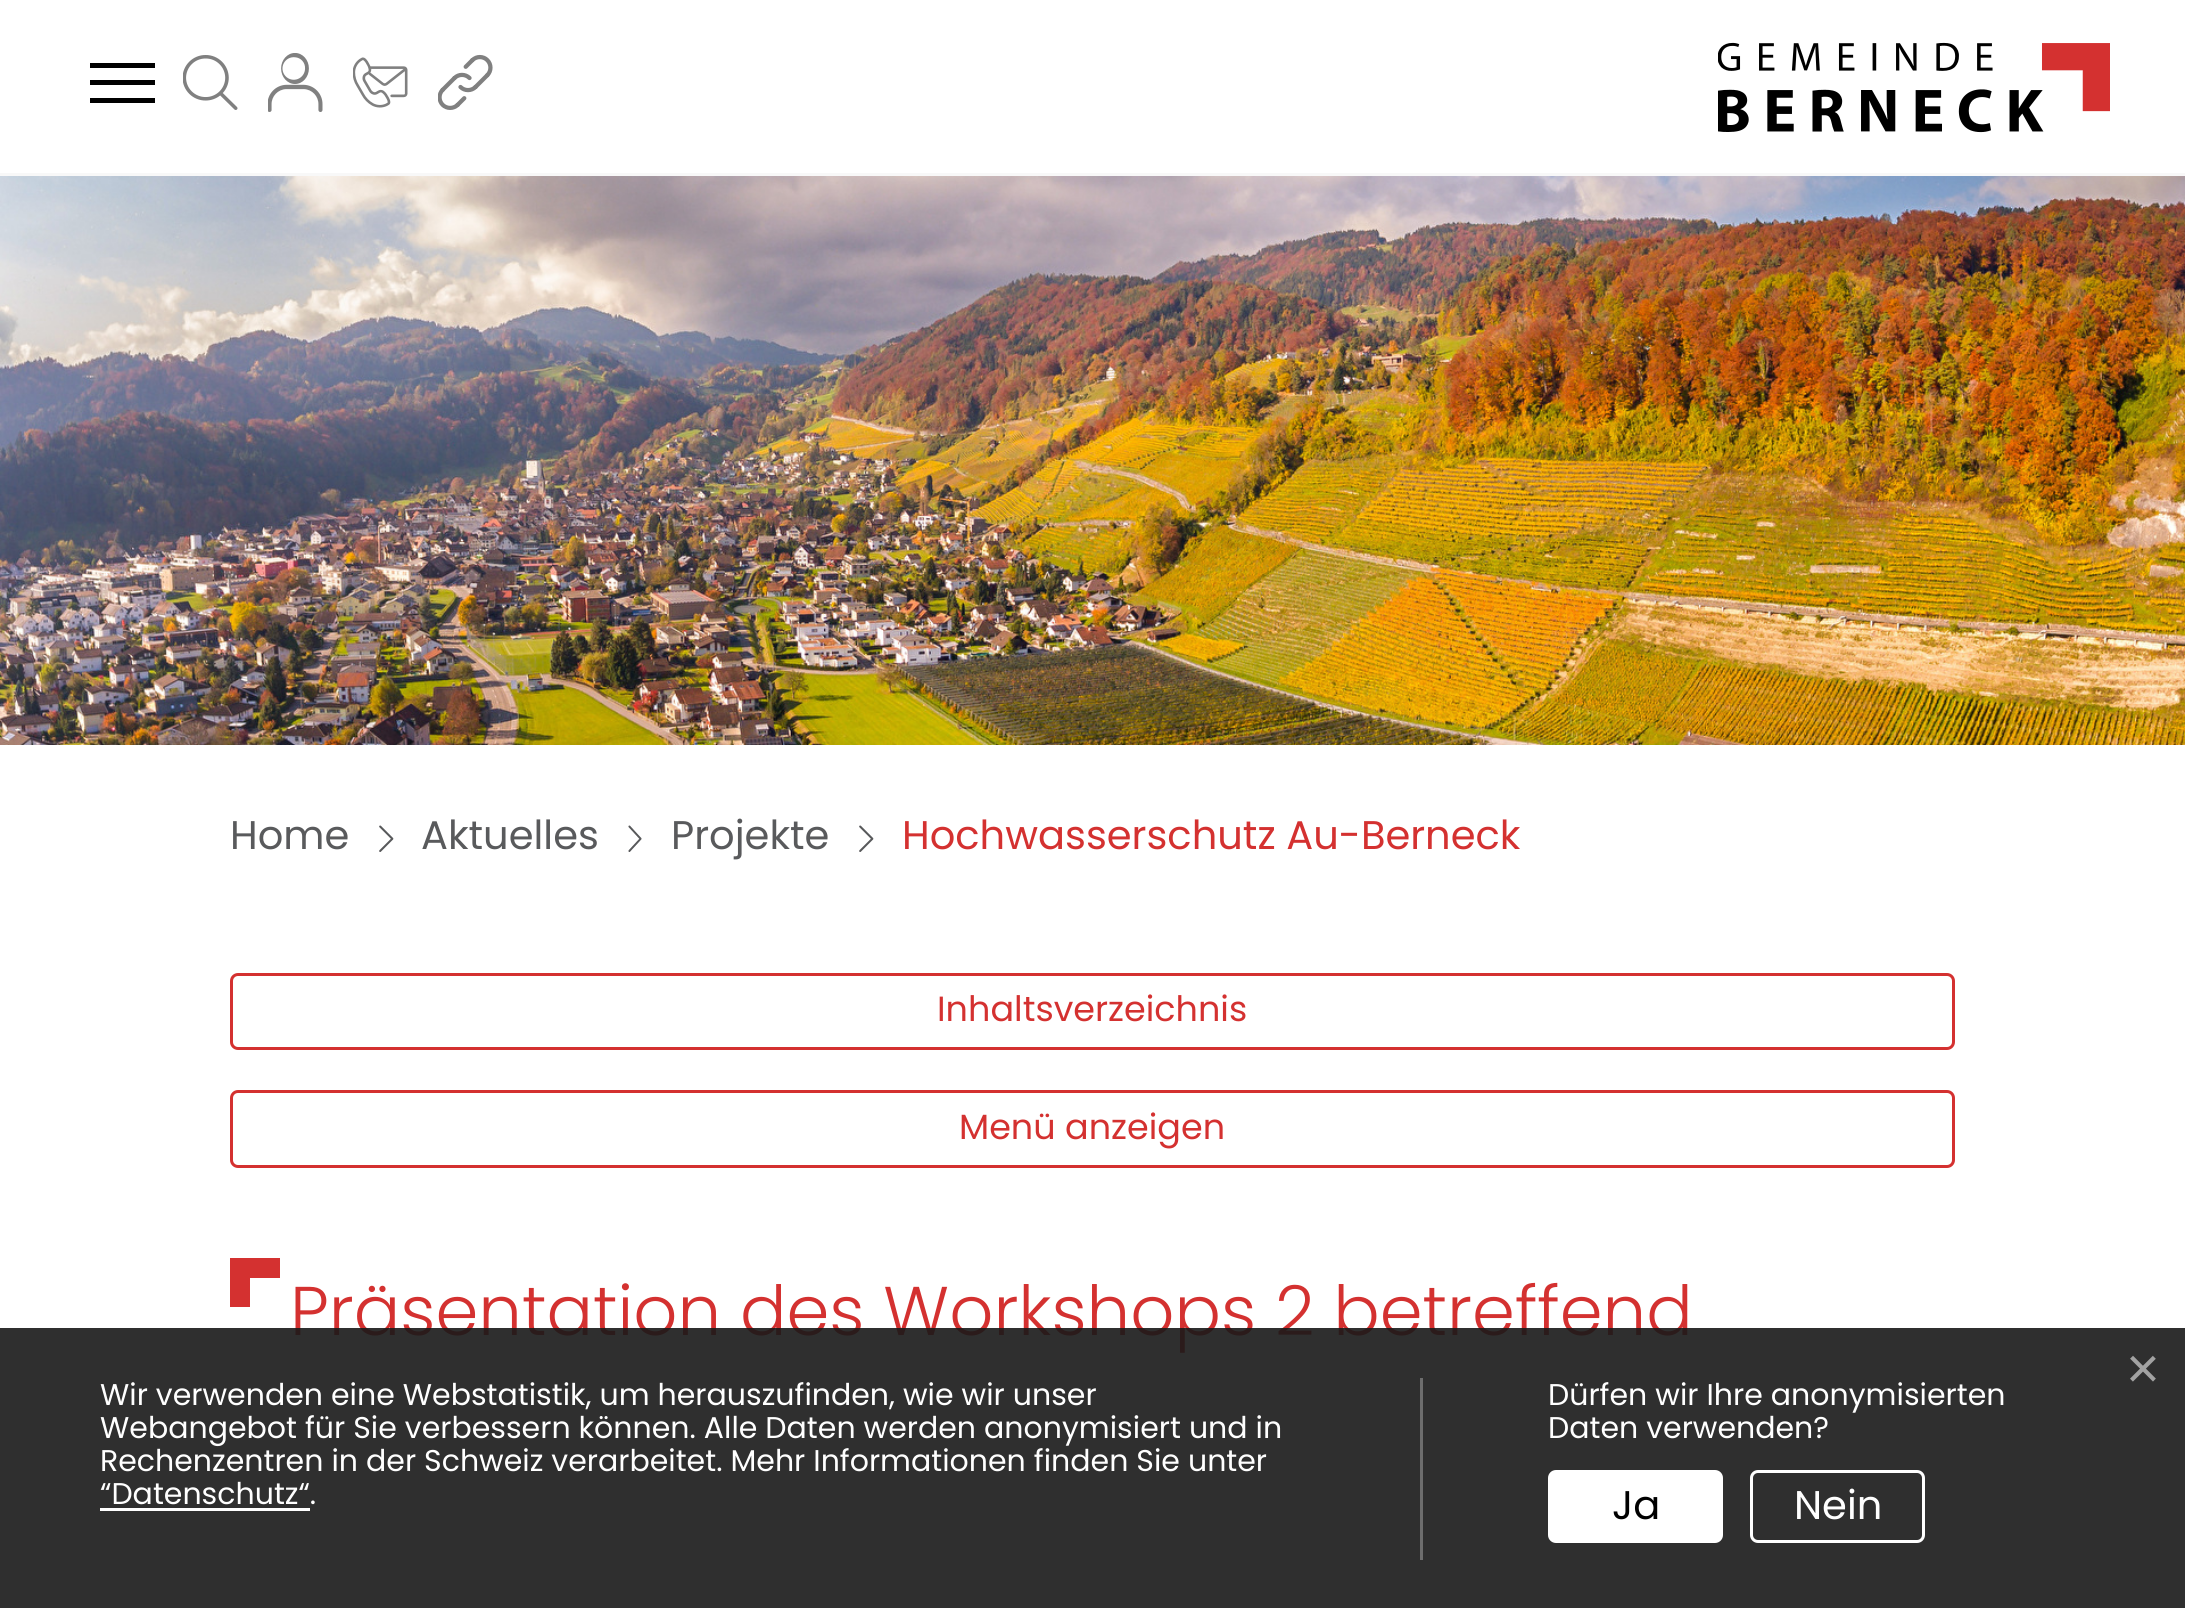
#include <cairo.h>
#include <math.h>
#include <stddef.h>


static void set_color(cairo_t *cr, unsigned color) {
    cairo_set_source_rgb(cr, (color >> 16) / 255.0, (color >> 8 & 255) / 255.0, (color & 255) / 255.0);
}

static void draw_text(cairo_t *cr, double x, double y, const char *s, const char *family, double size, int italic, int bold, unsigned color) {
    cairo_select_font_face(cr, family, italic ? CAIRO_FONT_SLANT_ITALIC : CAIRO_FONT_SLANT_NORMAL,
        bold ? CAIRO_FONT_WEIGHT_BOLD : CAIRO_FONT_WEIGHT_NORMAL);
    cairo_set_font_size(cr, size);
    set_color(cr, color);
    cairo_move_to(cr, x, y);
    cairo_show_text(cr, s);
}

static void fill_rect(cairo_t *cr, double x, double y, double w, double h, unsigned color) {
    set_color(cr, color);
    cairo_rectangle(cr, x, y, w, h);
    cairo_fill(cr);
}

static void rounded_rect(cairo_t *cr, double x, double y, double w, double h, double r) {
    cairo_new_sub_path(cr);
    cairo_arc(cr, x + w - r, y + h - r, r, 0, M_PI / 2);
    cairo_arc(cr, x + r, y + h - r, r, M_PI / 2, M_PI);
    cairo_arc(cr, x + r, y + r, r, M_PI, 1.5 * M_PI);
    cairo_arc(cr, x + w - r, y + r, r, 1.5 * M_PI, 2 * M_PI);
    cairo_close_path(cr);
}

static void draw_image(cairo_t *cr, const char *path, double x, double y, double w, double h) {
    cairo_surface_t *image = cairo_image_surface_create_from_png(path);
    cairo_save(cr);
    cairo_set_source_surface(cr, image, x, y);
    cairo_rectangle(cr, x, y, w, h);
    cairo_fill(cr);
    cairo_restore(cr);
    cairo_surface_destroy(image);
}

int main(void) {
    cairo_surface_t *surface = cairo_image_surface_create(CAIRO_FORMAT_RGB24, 2185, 1608);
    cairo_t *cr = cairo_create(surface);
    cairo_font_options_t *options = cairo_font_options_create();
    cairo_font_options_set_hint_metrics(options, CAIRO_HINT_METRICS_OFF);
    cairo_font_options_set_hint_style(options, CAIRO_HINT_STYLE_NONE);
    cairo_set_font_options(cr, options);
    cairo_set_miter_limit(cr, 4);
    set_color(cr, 0xFFFFFF);
    cairo_paint(cr);
    fill_rect(cr, 0, 173, 2185, 3, 0xF8F8F8);
    fill_rect(cr, 90, 63, 65, 5, 0x000000);
    fill_rect(cr, 90, 80, 65, 5, 0x000000);
    fill_rect(cr, 90, 98, 65, 5, 0x000000);
    draw_image(cr, "assets/img1.png", 183, 55, 55, 55);
    draw_image(cr, "assets/img2.png", 268, 53, 55, 59);
    draw_image(cr, "assets/img3.png", 353, 57, 55, 51);
    draw_image(cr, "assets/img4.png", 438, 54, 55, 56);
    draw_image(cr, "assets/img5.png", 1718, 42, 392, 91);
    draw_image(cr, "assets/img6.png", 0, 176, 2185, 569);
    draw_text(cr, 230, 849, "Home", "Poppins", 40, 0, 0, 0x595A5C);
    draw_image(cr, "assets/img7.png", 379, 825, 15, 27);
    draw_text(cr, 421, 849, "Aktuelles", "Poppins", 40, 0, 0, 0x595A5C);
    draw_image(cr, "assets/img8.png", 628, 825, 14, 27);
    draw_text(cr, 671, 849, "Projekte", "Poppins", 40, 0, 0, 0x595A5C);
    draw_image(cr, "assets/img7.png", 859, 825, 15, 27);
    draw_text(cr, 902, 849, "Hochwasserschutz Au-Berneck", "Poppins", 40, 0, 0, 0xD43130);
    rounded_rect(cr, 231.5, 974.5, 1722, 74, 6.5);
    cairo_set_line_width(cr, 3);
    cairo_stroke(cr);
    draw_text(cr, 937, 1021, "Inhaltsverzeichnis", "Poppins", 35, 0, 0, 0xD43130);
    rounded_rect(cr, 231.5, 1091.5, 1722, 75, 6.5);
    cairo_stroke(cr);
    draw_text(cr, 959, 1139, "Menü anzeigen", "Poppins", 35, 0, 0, 0xD43130);
    cairo_new_path(cr);
    cairo_move_to(cr, 250, 1258);
    cairo_line_to(cr, 280, 1258);
    cairo_line_to(cr, 280, 1278);
    cairo_line_to(cr, 250, 1278);
    cairo_line_to(cr, 250, 1307);
    cairo_line_to(cr, 230, 1307);
    cairo_line_to(cr, 230, 1258);
    cairo_close_path(cr);
    cairo_fill(cr);
    draw_text(cr, 290, 1335, "Präsentation des Workshops 2 betreffend", "Poppins Light", 68.9, 0, 0, 0xD43130);
    cairo_set_source_rgba(cr, 0.098, 0.098, 0.098, 0.9);
    cairo_rectangle(cr, 0, 1328, 2185, 280);
    cairo_fill(cr);
    draw_text(cr, 2126, 1388, "×", "Liberation Sans", 58, 0, 0, 0xA2A2A2);
    fill_rect(cr, 1420, 1378, 3, 182, 0x6D6D6D);
    draw_text(cr, 100, 1405, "Wir verwenden eine Webstatistik, um herauszufinden, wie wir unser", "Poppins", 30, 0, 0, 0xFFFFFF);
    draw_text(cr, 100, 1438, "Webangebot für Sie verbessern können. Alle Daten werden anonymisiert und in", "Poppins", 30, 0, 0, 0xFFFFFF);
    draw_text(cr, 100, 1471, "Rechenzentren in der Schweiz verarbeitet. Mehr Informationen finden Sie unter", "Poppins", 30, 0, 0, 0xFFFFFF);
    draw_text(cr, 100, 1504, "“Datenschutz“.", "Poppins", 30, 0, 0, 0xFFFFFF);
    fill_rect(cr, 100, 1508, 210, 3, 0xFFFFFF);
    draw_text(cr, 1548, 1405, "Dürfen wir Ihre anonymisierten", "Poppins", 30, 0, 0, 0xFFFFFF);
    draw_text(cr, 1548, 1438, "Daten verwenden?", "Poppins", 30, 0, 0, 0xFFFFFF);
    rounded_rect(cr, 1549.5, 1471.5, 172, 70, 6.5);
    cairo_fill_preserve(cr);
    cairo_stroke(cr);
    draw_text(cr, 1612, 1519, "Ja", "Poppins", 40, 0, 0, 0x000000);
    rounded_rect(cr, 1751.5, 1471.5, 172, 70, 6.5);
    set_color(cr, 0xFFFFFF);
    cairo_stroke(cr);
    draw_text(cr, 1794, 1519, "Nein", "Poppins", 40, 0, 0, 0xFFFFFF);
    cairo_surface_write_to_png(surface, "output.png");
    cairo_font_options_destroy(options);
    cairo_destroy(cr);
    cairo_surface_destroy(surface);
    return 0;
}
